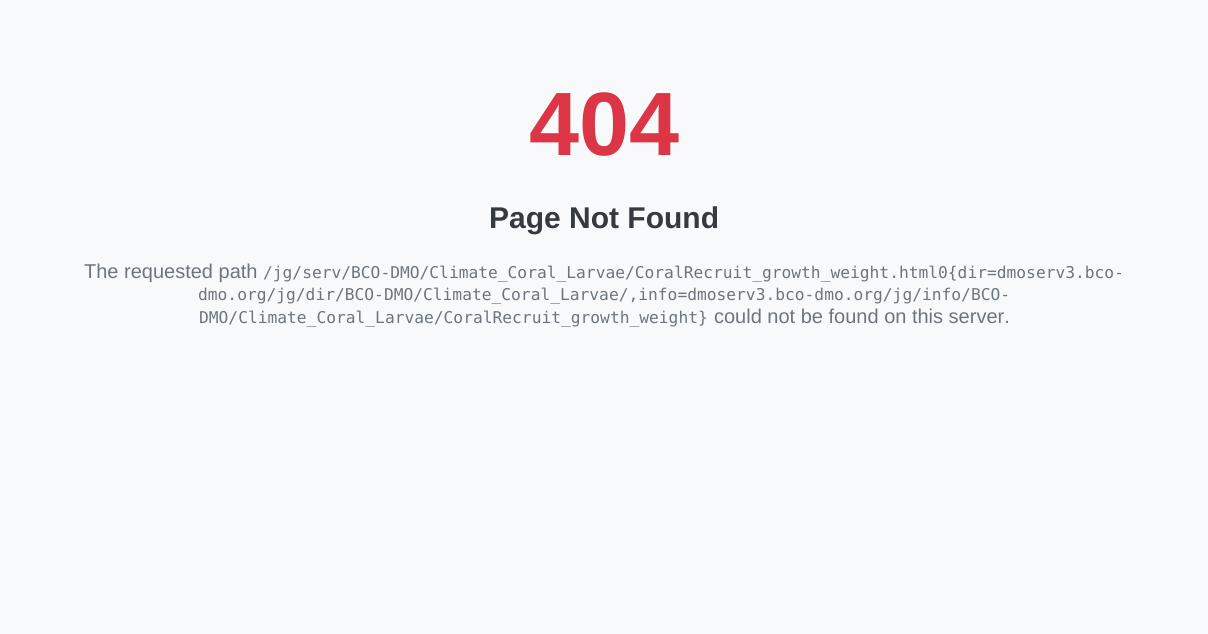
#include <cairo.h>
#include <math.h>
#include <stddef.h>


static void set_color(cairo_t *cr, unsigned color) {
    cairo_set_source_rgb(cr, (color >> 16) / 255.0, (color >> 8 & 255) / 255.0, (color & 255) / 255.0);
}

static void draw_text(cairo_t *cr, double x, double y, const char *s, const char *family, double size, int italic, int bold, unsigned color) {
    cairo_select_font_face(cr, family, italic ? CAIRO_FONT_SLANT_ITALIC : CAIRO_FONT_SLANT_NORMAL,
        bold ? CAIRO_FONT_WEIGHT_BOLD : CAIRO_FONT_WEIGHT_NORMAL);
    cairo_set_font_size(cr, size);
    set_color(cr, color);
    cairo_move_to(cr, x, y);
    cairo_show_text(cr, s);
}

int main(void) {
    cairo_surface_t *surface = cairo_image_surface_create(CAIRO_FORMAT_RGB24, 1208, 634);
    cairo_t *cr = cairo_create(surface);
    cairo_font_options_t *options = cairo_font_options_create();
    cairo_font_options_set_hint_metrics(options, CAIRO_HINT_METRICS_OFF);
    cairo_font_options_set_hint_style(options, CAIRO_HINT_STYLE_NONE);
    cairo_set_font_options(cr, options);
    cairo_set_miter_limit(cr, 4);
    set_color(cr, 0xF8F9FA);
    cairo_paint(cr);
    draw_text(cr, 529, 155, "404", "Liberation Sans", 90, 0, 1, 0xDC3545);
    draw_text(cr, 489, 228, "Page Not Found", "Liberation Sans", 30, 0, 1, 0x343A40);
    draw_text(cr, 84, 278, "The requested path", "Liberation Sans", 20, 0, 0, 0x6C757D);
    draw_text(cr, 263, 278, "/jg/serv/BCO-DMO/Climate_Coral_Larvae/CoralRecruit_growth_weight.html0{dir=dmoserv3.bco-", "DejaVu Sans Mono", 16.25, 0, 0, 0x6C757D);
    draw_text(cr, 198, 300, "dmo.org/jg/dir/BCO-DMO/Climate_Coral_Larvae/,info=dmoserv3.bco-dmo.org/jg/info/BCO-", "DejaVu Sans Mono", 16.25, 0, 0, 0x6C757D);
    draw_text(cr, 199, 323, "DMO/Climate_Coral_Larvae/CoralRecruit_growth_weight}", "DejaVu Sans Mono", 16.25, 0, 0, 0x6C757D);
    draw_text(cr, 714, 323, "could not be found on this server.", "Liberation Sans", 20, 0, 0, 0x6C757D);
    cairo_surface_write_to_png(surface, "output.png");
    cairo_font_options_destroy(options);
    cairo_destroy(cr);
    cairo_surface_destroy(surface);
    return 0;
}
